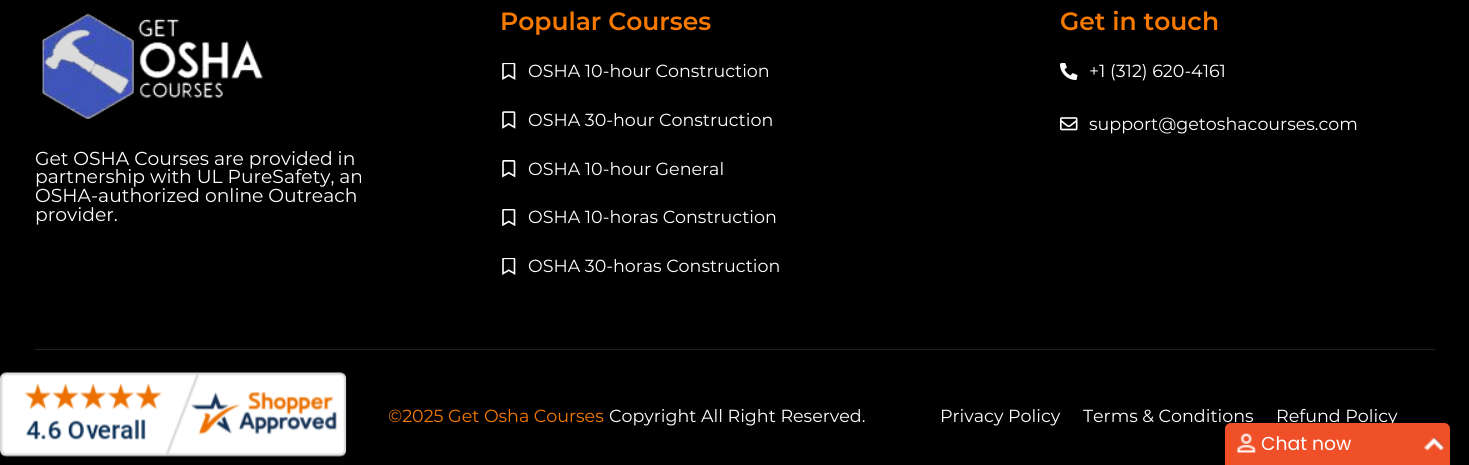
#include <cairo.h>
#include <math.h>
#include <stddef.h>


static void set_color(cairo_t *cr, unsigned color) {
    cairo_set_source_rgb(cr, (color >> 16) / 255.0, (color >> 8 & 255) / 255.0, (color & 255) / 255.0);
}

static void draw_text(cairo_t *cr, double x, double y, const char *s, const char *family, double size, int italic, int bold, unsigned color) {
    cairo_select_font_face(cr, family, italic ? CAIRO_FONT_SLANT_ITALIC : CAIRO_FONT_SLANT_NORMAL,
        bold ? CAIRO_FONT_WEIGHT_BOLD : CAIRO_FONT_WEIGHT_NORMAL);
    cairo_set_font_size(cr, size);
    set_color(cr, color);
    cairo_move_to(cr, x, y);
    cairo_show_text(cr, s);
}

static void fill_rect(cairo_t *cr, double x, double y, double w, double h, unsigned color) {
    set_color(cr, color);
    cairo_rectangle(cr, x, y, w, h);
    cairo_fill(cr);
}

static void draw_image(cairo_t *cr, const char *path, double x, double y, double w, double h) {
    cairo_surface_t *image = cairo_image_surface_create_from_png(path);
    cairo_save(cr);
    cairo_set_source_surface(cr, image, x, y);
    cairo_rectangle(cr, x, y, w, h);
    cairo_fill(cr);
    cairo_restore(cr);
    cairo_surface_destroy(image);
}

int main(void) {
    cairo_surface_t *surface = cairo_image_surface_create(CAIRO_FORMAT_RGB24, 1469, 465);
    cairo_t *cr = cairo_create(surface);
    cairo_font_options_t *options = cairo_font_options_create();
    cairo_font_options_set_hint_metrics(options, CAIRO_HINT_METRICS_OFF);
    cairo_font_options_set_hint_style(options, CAIRO_HINT_STYLE_NONE);
    cairo_set_font_options(cr, options);
    cairo_set_miter_limit(cr, 4);
    set_color(cr, 0x000000);
    cairo_paint(cr);
    draw_image(cr, "assets/img1.png", 41, 13, 222, 106);
    draw_text(cr, 35, 165, "Get OSHA Courses are provided in", "Montserrat", 18.75, 0, 0, 0xFFFFFF);
    draw_text(cr, 35, 183, "partnership with UL PureSafety, an", "Montserrat", 18.75, 0, 0, 0xFFFFFF);
    draw_text(cr, 35, 202, "OSHA-authorized online Outreach", "Montserrat", 18.75, 0, 0, 0xFFFFFF);
    draw_text(cr, 35, 221, "provider.", "Montserrat", 18.75, 0, 0, 0xFFFFFF);
    draw_text(cr, 500, 30, "Popular Courses", "Montserrat SemiBold", 25, 0, 0, 0xF77900);
    draw_image(cr, "assets/img2.png", 502, 63, 14, 17);
    draw_text(cr, 528, 77, "OSHA 10-hour Construction", "Montserrat", 17.5, 0, 0, 0xFFFFFF);
    draw_image(cr, "assets/img3.png", 502, 111, 14, 18);
    draw_text(cr, 528, 126, "OSHA 30-hour Construction", "Montserrat", 17.5, 0, 0, 0xFFFFFF);
    draw_image(cr, "assets/img4.png", 502, 160, 14, 18);
    draw_text(cr, 528, 175, "OSHA 10-hour General", "Montserrat", 17.5, 0, 0, 0xFFFFFF);
    draw_image(cr, "assets/img5.png", 502, 209, 14, 17);
    draw_text(cr, 528, 223, "OSHA 10-horas Construction", "Montserrat", 17.5, 0, 0, 0xFFFFFF);
    draw_image(cr, "assets/img2.png", 502, 258, 14, 17);
    draw_text(cr, 528, 272, "OSHA 30-horas Construction", "Montserrat", 17.5, 0, 0, 0xFFFFFF);
    draw_text(cr, 1060, 30, "Get in touch", "Montserrat SemiBold", 25, 0, 0, 0xF77900);
    draw_image(cr, "assets/img6.png", 1060, 63, 18, 17);
    draw_text(cr, 1089, 77, "+1 (312) 620-4161", "Montserrat", 17.5, 0, 0, 0xFFFFFF);
    draw_image(cr, "assets/img7.png", 1060, 117, 18, 14);
    draw_text(cr, 1089, 130, "support@getoshacourses.com", "Montserrat", 17.5, 0, 0, 0xFFFFFF);
    fill_rect(cr, 35, 349, 1400, 1, 0x212121);
    draw_text(cr, 388, 422, "©2025 Get Osha Courses", "Montserrat", 17.5, 0, 0, 0xF77900);
    draw_text(cr, 609, 422, "Copyright All Right Reserved.", "Montserrat", 17.5, 0, 0, 0xFFFFFF);
    draw_text(cr, 940, 422, "Privacy Policy", "Montserrat", 17.5, 0, 0, 0xFFFFFF);
    draw_text(cr, 1083, 422, "Terms & Conditions", "Montserrat", 17.5, 0, 0, 0xFFFFFF);
    draw_text(cr, 1276, 422, "Refund Policy", "Montserrat", 17.5, 0, 0, 0xFFFFFF);
    draw_image(cr, "assets/img8.png", 0, 372, 347, 85);
    set_color(cr, 0xEF5028);
    cairo_new_path(cr);
    cairo_move_to(cr, 1231, 423);
    cairo_line_to(cr, 1444, 423);
    cairo_curve_to(cr, 1447.5, 423, 1450, 425.5, 1450, 429);
    cairo_line_to(cr, 1450, 465);
    cairo_line_to(cr, 1225, 465);
    cairo_line_to(cr, 1225, 429);
    cairo_curve_to(cr, 1225, 425.5, 1227.5, 423, 1231, 423);
    cairo_close_path(cr);
    cairo_fill(cr);
    draw_image(cr, "assets/img9.png", 1236, 433, 20, 20);
    draw_text(cr, 1261, 450, "Chat now", "Poppins", 18.75, 0, 0, 0xFFFFFF);
    draw_image(cr, "assets/img10.png", 1423, 436, 21, 15);
    cairo_surface_write_to_png(surface, "output.png");
    cairo_font_options_destroy(options);
    cairo_destroy(cr);
    cairo_surface_destroy(surface);
    return 0;
}
